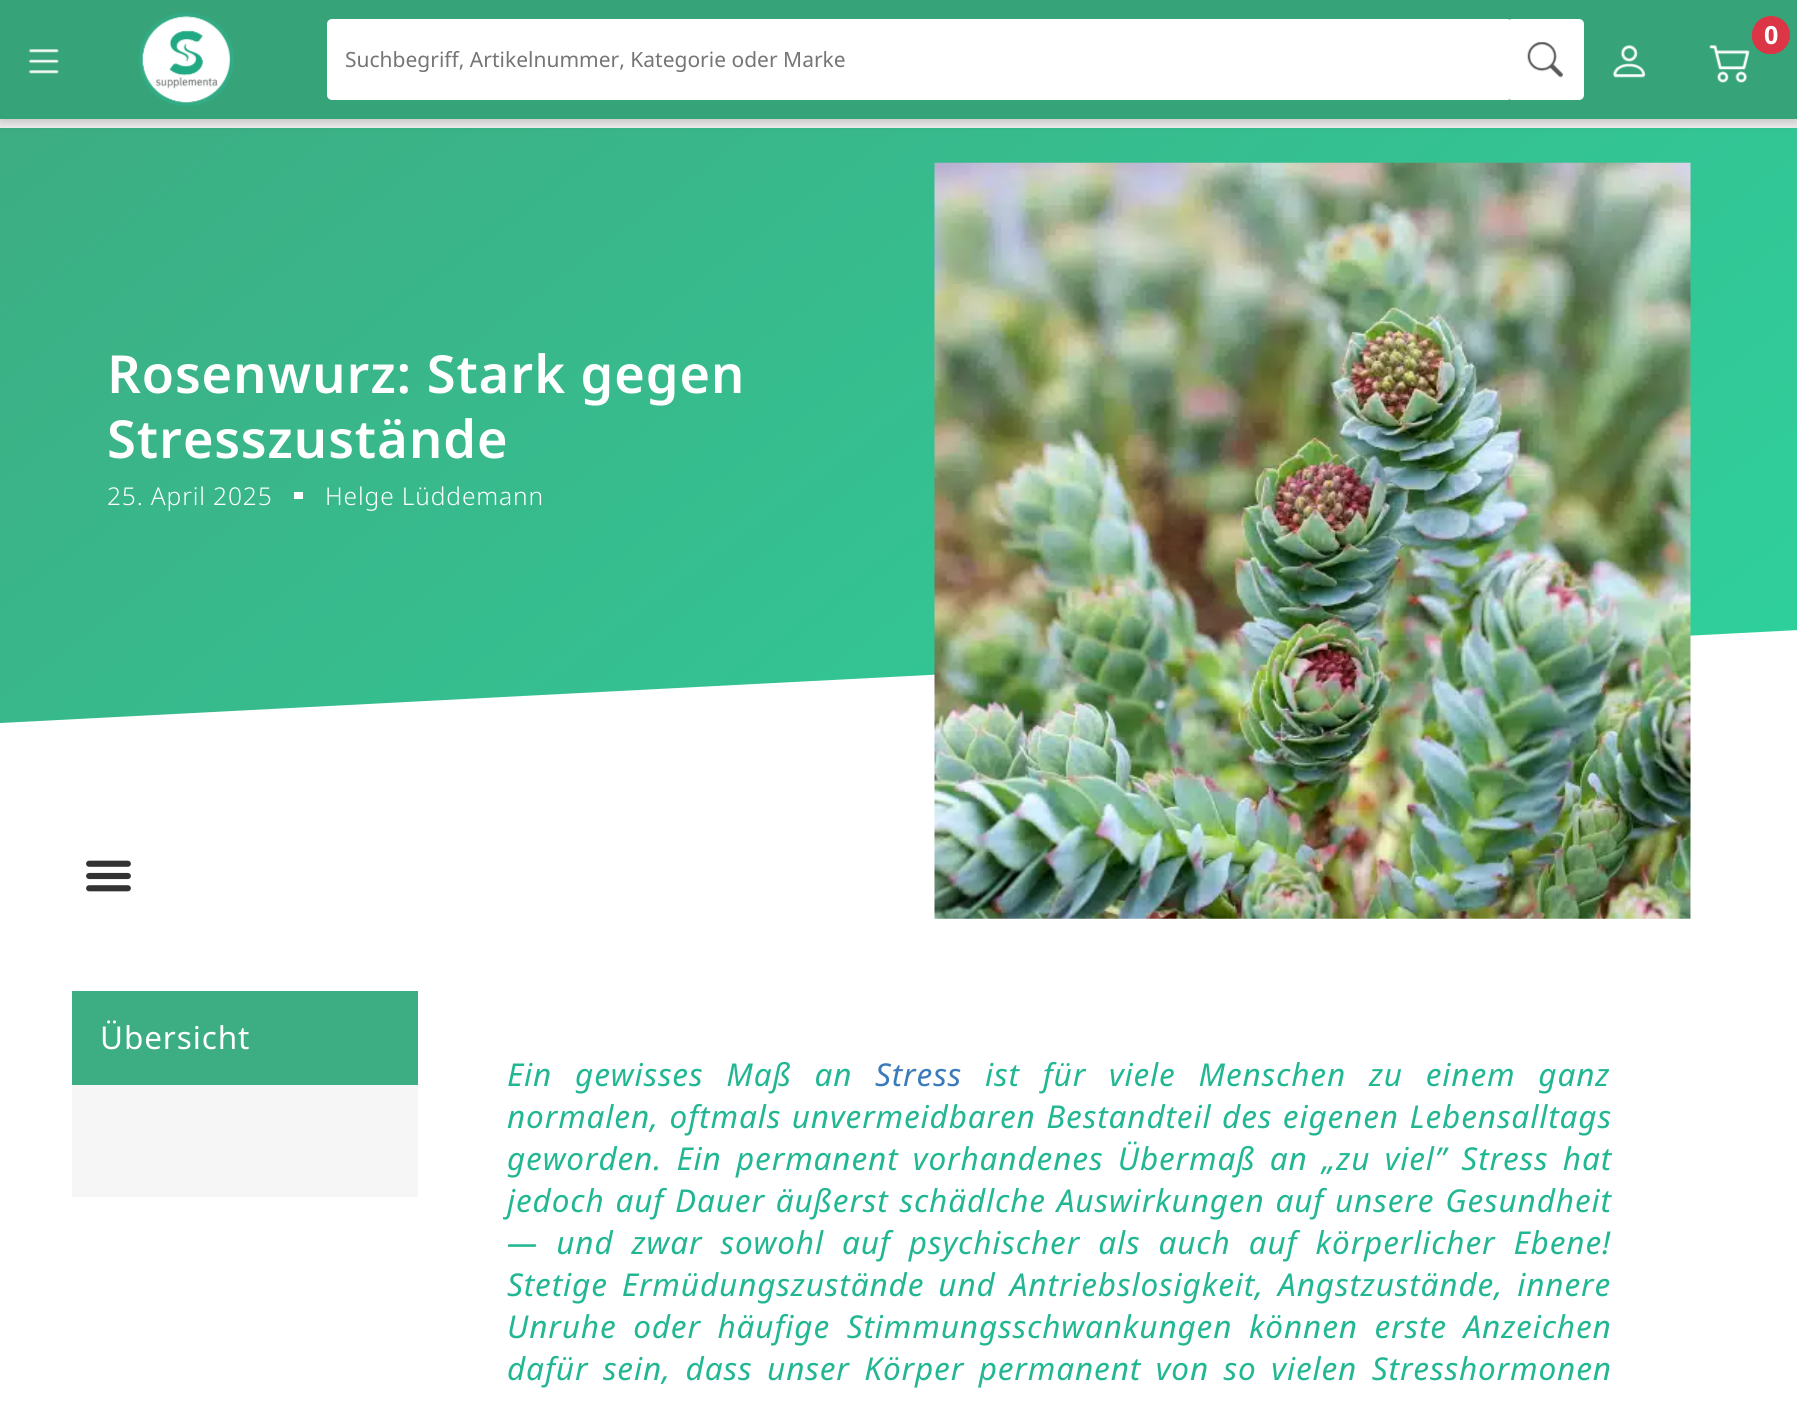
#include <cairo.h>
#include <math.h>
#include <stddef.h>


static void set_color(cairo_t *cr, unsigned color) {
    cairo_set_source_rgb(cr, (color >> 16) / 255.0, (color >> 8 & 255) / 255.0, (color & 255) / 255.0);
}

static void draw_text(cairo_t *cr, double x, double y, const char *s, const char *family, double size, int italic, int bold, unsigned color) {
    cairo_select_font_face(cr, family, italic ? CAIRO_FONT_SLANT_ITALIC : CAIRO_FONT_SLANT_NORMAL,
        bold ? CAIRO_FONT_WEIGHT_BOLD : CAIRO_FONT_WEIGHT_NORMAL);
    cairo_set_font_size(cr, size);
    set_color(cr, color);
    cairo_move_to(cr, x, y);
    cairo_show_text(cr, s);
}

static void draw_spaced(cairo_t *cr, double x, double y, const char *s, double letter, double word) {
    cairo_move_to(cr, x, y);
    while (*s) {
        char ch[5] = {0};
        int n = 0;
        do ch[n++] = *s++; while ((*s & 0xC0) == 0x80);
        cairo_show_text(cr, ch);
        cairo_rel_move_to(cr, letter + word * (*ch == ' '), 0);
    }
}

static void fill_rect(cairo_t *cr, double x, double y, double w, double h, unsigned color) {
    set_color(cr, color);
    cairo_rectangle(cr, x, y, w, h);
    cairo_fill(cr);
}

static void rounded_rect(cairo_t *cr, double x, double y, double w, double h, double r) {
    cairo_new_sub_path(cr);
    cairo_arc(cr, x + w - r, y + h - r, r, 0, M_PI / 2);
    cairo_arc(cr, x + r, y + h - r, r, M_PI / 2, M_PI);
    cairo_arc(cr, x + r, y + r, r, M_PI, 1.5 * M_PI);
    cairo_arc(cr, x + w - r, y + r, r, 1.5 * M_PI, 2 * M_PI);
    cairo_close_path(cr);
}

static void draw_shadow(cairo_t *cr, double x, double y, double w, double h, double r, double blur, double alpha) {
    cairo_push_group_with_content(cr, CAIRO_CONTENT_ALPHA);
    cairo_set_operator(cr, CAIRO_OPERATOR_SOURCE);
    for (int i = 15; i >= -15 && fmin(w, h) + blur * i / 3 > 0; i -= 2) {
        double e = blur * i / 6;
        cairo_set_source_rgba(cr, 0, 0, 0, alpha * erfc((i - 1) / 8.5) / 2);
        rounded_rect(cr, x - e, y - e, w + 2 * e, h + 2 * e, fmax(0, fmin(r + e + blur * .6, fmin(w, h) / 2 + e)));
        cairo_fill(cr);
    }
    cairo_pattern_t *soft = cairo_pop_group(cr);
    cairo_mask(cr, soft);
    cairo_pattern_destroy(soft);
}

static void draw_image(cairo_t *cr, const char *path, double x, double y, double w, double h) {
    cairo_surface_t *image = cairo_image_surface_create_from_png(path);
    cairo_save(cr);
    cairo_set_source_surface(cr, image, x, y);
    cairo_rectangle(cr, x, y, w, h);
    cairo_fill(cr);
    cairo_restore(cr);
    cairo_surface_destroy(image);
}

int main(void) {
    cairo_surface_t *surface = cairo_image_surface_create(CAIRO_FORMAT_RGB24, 1797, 1412);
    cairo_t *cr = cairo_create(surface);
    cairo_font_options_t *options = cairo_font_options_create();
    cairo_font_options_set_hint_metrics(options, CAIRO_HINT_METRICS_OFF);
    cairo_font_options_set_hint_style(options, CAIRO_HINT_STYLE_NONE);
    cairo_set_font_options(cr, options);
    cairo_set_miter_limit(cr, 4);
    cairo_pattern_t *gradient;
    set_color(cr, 0xFFFFFF);
    cairo_paint(cr);
    fill_rect(cr, 0, 119, 1797, 9, 0xEEEEEE);
    gradient = cairo_pattern_create_linear(429, -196, 1368, 1050);
    cairo_pattern_add_color_stop_rgba(gradient, 0, 0.239, 0.678, 0.514, 1);
    cairo_pattern_add_color_stop_rgba(gradient, 1, 0.18, 0.82, 0.616, 1);
    cairo_set_source(cr, gradient);
    cairo_pattern_destroy(gradient);
    cairo_rectangle(cr, 0, 128, 1797, 595);
    cairo_fill(cr);
    set_color(cr, 0x212121);
    draw_shadow(cr, 0, 4, 1797, 119, 0, 5, 0.2);
    fill_rect(cr, 0, 0, 1797, 119, 0x36A478);
    draw_image(cr, "assets/img1.png", 138, 12, 96, 95);
    set_color(cr, 0xDC3545);
    rounded_rect(cr, 1752, 18, 37, 36, 18);
    cairo_fill(cr);
    cairo_arc(cr, 1771, 35, 19, 0, 2 * M_PI);
    cairo_fill(cr);
    cairo_select_font_face(cr, "Noto Sans", CAIRO_FONT_SLANT_NORMAL, CAIRO_FONT_WEIGHT_BOLD);
    cairo_set_font_size(cr, 25);
    set_color(cr, 0xFFFFFF);
    draw_spaced(cr, 1764, 44, "0", 0.88, 0);
    draw_image(cr, "assets/img2.png", 1709, 45, 41, 38);
    draw_image(cr, "assets/img3.png", 1612, 45, 34, 33);
    draw_image(cr, "assets/img4.png", 28, 49, 31, 25);
    rounded_rect(cr, 327, 19, 1185, 81, 5);
    cairo_fill(cr);
    draw_text(cr, 345, 67, "Suchbegriff, Artikelnummer, Kategorie oder Marke", "Noto Sans", 21, 0, 0, 0x757575);
    set_color(cr, 0xFFFFFF);
    rounded_rect(cr, 1507, 19, 77, 81, 5);
    cairo_fill(cr);
    draw_image(cr, "assets/img5.png", 1527, 41, 36, 37);
    cairo_select_font_face(cr, "Noto Sans SemiBold", CAIRO_FONT_SLANT_NORMAL, CAIRO_FONT_WEIGHT_NORMAL);
    cairo_set_font_size(cr, 52.5);
    draw_spaced(cr, 107, 393, "Rosenwurz: Stark gegen", 0.88, 0);
    draw_spaced(cr, 107, 458, "Stresszustände", 0.88, 0);
    cairo_select_font_face(cr, "Noto Sans Light", CAIRO_FONT_SLANT_NORMAL, CAIRO_FONT_WEIGHT_NORMAL);
    cairo_set_font_size(cr, 24.5);
    draw_spaced(cr, 107, 505, "25. April 2025", 0.88, 0);
    fill_rect(cr, 294, 492, 9, 7, 0xFFFFFF);
    draw_spaced(cr, 325, 505, "Helge Lüddemann", 0.88, 0);
    cairo_save(cr);
    cairo_rectangle(cr, 0, 628, 1797, 100);
    cairo_clip(cr);
    cairo_new_path(cr);
    cairo_move_to(cr, 0, 723);
    cairo_line_to(cr, 0, 729);
    cairo_line_to(cr, 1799, 729);
    cairo_line_to(cr, 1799, 630);
    cairo_close_path(cr);
    cairo_fill(cr);
    cairo_restore(cr);
    draw_image(cr, "assets/img6.png", 934, 162, 757, 757);
    draw_image(cr, "assets/img7.png", 86, 860, 45, 32);
    fill_rect(cr, 72, 1085, 346, 112, 0xF7F6F6);
    fill_rect(cr, 72, 991, 346, 94, 0x3DAD83);
    cairo_select_font_face(cr, "Noto Sans", CAIRO_FONT_SLANT_NORMAL, CAIRO_FONT_WEIGHT_NORMAL);
    cairo_set_font_size(cr, 31.5);
    set_color(cr, 0xFFFFFF);
    draw_spaced(cr, 100, 1049, "Übersicht", 0.88, 0);
    cairo_select_font_face(cr, "Noto Sans", CAIRO_FONT_SLANT_ITALIC, CAIRO_FONT_WEIGHT_NORMAL);
    set_color(cr, 0x22B792);
    draw_spaced(cr, 507, 1086, "Ein gewisses Maß an", 0.88, 13.75);
    set_color(cr, 0x3B7BBB);
    draw_spaced(cr, 875, 1086, "Stress", 0.88, 0);
    set_color(cr, 0x22B792);
    draw_spaced(cr, 985, 1086, "ist für viele Menschen zu einem ganz", 0.88, 13.75);
    draw_spaced(cr, 507, 1128, "normalen, oftmals unvermeidbaren Bestandteil des eigenen Lebensalltags", 0.88, 1.5);
    draw_spaced(cr, 507, 1170, "geworden. Ein permanent vorhandenes Übermaß an „zu viel” Stress hat", 0.88, 5.25);
    draw_spaced(cr, 507, 1212, "jedoch auf Dauer äußerst schädlche Auswirkungen auf unsere Gesundheit", 0.88, 1.75);
    draw_spaced(cr, 507, 1254, "— und zwar sowohl auf psychischer als auch auf körperlicher Ebene!", 0.88, 9);
    draw_spaced(cr, 507, 1296, "Stetige Ermüdungszustände und Antriebslosigkeit, Angstzustände, innere", 0.88, 5);
    draw_spaced(cr, 507, 1338, "Unruhe oder häufige Stimmungsschwankungen können erste Anzeichen", 0.88, 7.5);
    draw_spaced(cr, 507, 1380, "dafür sein, dass unser Körper permanent von so vielen Stresshormonen", 0.88, 5.5);
    cairo_surface_write_to_png(surface, "output.png");
    cairo_font_options_destroy(options);
    cairo_destroy(cr);
    cairo_surface_destroy(surface);
    return 0;
}
